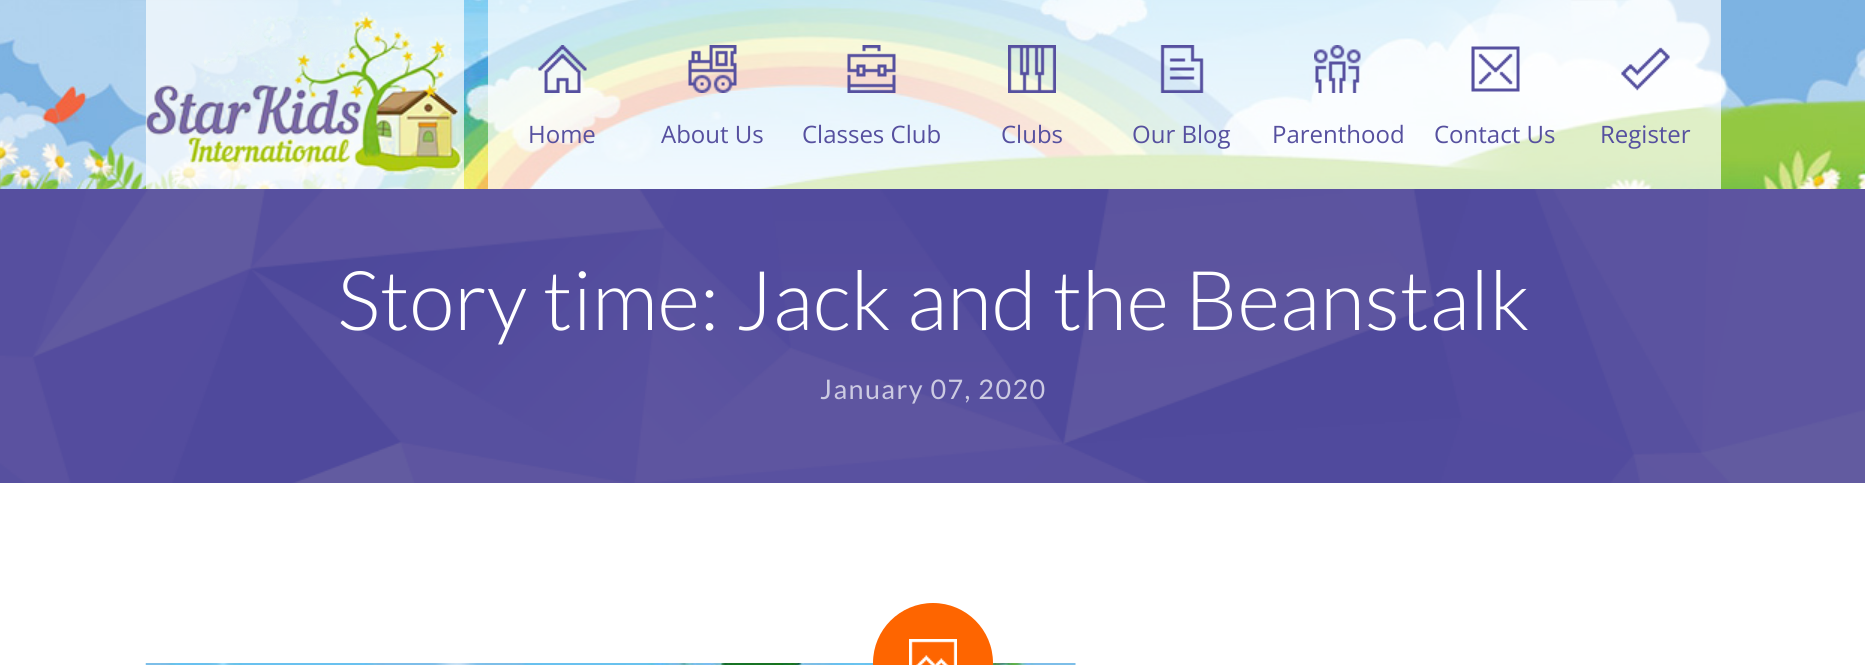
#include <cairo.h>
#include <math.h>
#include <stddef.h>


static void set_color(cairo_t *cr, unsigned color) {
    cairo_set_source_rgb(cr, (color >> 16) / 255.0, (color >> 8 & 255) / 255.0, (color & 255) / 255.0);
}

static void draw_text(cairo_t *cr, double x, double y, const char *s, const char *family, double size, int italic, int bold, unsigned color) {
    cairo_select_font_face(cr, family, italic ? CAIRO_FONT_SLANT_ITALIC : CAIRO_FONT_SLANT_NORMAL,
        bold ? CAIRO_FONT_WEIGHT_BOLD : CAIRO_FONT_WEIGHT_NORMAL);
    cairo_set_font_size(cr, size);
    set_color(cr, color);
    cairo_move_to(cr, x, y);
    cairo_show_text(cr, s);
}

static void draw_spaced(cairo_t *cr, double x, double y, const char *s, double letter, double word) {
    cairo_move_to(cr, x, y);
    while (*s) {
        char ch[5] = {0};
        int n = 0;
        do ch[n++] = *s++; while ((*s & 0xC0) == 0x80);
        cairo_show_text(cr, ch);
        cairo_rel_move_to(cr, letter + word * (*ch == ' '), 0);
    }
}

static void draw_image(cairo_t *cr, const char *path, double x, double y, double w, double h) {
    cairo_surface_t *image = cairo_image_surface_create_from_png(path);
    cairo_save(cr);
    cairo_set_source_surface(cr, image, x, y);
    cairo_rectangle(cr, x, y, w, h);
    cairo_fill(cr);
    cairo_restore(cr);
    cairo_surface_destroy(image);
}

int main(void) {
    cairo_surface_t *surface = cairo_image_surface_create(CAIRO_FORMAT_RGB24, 1865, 665);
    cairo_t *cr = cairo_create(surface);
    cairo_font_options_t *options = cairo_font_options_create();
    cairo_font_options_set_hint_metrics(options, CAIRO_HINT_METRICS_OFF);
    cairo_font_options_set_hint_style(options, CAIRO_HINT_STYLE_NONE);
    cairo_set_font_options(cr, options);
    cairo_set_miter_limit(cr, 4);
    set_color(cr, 0xFFFFFF);
    cairo_paint(cr);
    draw_image(cr, "assets/img1.png", 0, 0, 1865, 189);
    cairo_set_source_rgba(cr, 1, 1, 1, 0.7);
    cairo_rectangle(cr, 146, 0, 318, 189);
    cairo_fill(cr);
    draw_image(cr, "assets/img2.png", 145, 11, 319, 165);
    cairo_rectangle(cr, 488, 0, 150, 189);
    cairo_fill(cr);
    draw_image(cr, "assets/img3.png", 538, 45, 49, 48);
    draw_text(cr, 528, 143, "Home", "Open Sans", 24, 0, 0, 0x56509F);
    cairo_set_source_rgba(cr, 1, 1, 1, 0.7);
    cairo_rectangle(cr, 638, 0, 150, 189);
    cairo_fill(cr);
    draw_image(cr, "assets/img4.png", 688, 45, 49, 48);
    draw_text(cr, 661, 143, "About Us", "Open Sans", 24, 0, 0, 0x56509F);
    cairo_set_source_rgba(cr, 1, 1, 1, 0.7);
    cairo_rectangle(cr, 788, 0, 169, 189);
    cairo_fill(cr);
    draw_image(cr, "assets/img5.png", 847, 45, 49, 48);
    draw_text(cr, 802, 143, "Classes Club", "Open Sans", 24, 0, 0, 0x56509F);
    cairo_set_source_rgba(cr, 1, 1, 1, 0.7);
    cairo_rectangle(cr, 957, 0, 150, 189);
    cairo_fill(cr);
    draw_image(cr, "assets/img6.png", 1008, 45, 48, 48);
    draw_text(cr, 1001, 143, "Clubs", "Open Sans", 24, 0, 0, 0x56509F);
    cairo_set_source_rgba(cr, 1, 1, 1, 0.7);
    cairo_rectangle(cr, 1107, 0, 150, 189);
    cairo_fill(cr);
    draw_image(cr, "assets/img7.png", 1160, 45, 44, 48);
    draw_text(cr, 1132, 143, "Our Blog", "Open Sans", 24, 0, 0, 0x56509F);
    cairo_set_source_rgba(cr, 1, 1, 1, 0.7);
    cairo_rectangle(cr, 1257, 0, 162, 189);
    cairo_fill(cr);
    draw_image(cr, "assets/img8.png", 1314, 45, 47, 48);
    draw_text(cr, 1272, 143, "Parenthood", "Open Sans", 24, 0, 0, 0x56509F);
    cairo_set_source_rgba(cr, 1, 1, 1, 0.7);
    cairo_rectangle(cr, 1419, 0, 152, 189);
    cairo_fill(cr);
    draw_image(cr, "assets/img9.png", 1471, 46, 49, 46);
    draw_text(cr, 1434, 143, "Contact Us", "Open Sans", 24, 0, 0, 0x56509F);
    cairo_set_source_rgba(cr, 1, 1, 1, 0.7);
    cairo_rectangle(cr, 1571, 0, 150, 189);
    cairo_fill(cr);
    draw_image(cr, "assets/img10.png", 1621, 47, 49, 44);
    draw_text(cr, 1600, 143, "Register", "Open Sans", 24, 0, 0, 0x56509F);
    draw_image(cr, "assets/img11.png", 0, 189, 1865, 294);
    draw_text(cr, 337, 330, "Story time: Jack and the Beanstalk", "Lato Light", 82.5, 0, 0, 0xFFFFFF);
    cairo_select_font_face(cr, "Lato", CAIRO_FONT_SLANT_NORMAL, CAIRO_FONT_WEIGHT_NORMAL);
    cairo_set_font_size(cr, 27);
    set_color(cr, 0xCCCAE2);
    draw_spaced(cr, 820, 399, "January 07, 2020", 1.4, 0);
    draw_image(cr, "assets/img13.png", 145, 663, 931, 2);
    set_color(cr, 0xFE6500);
    cairo_arc(cr, 933, 663, 60, 0, 2 * M_PI);
    cairo_fill(cr);
    draw_image(cr, "assets/img12.png", 909, 639, 48, 26);
    cairo_surface_write_to_png(surface, "output.png");
    cairo_font_options_destroy(options);
    cairo_destroy(cr);
    cairo_surface_destroy(surface);
    return 0;
}
